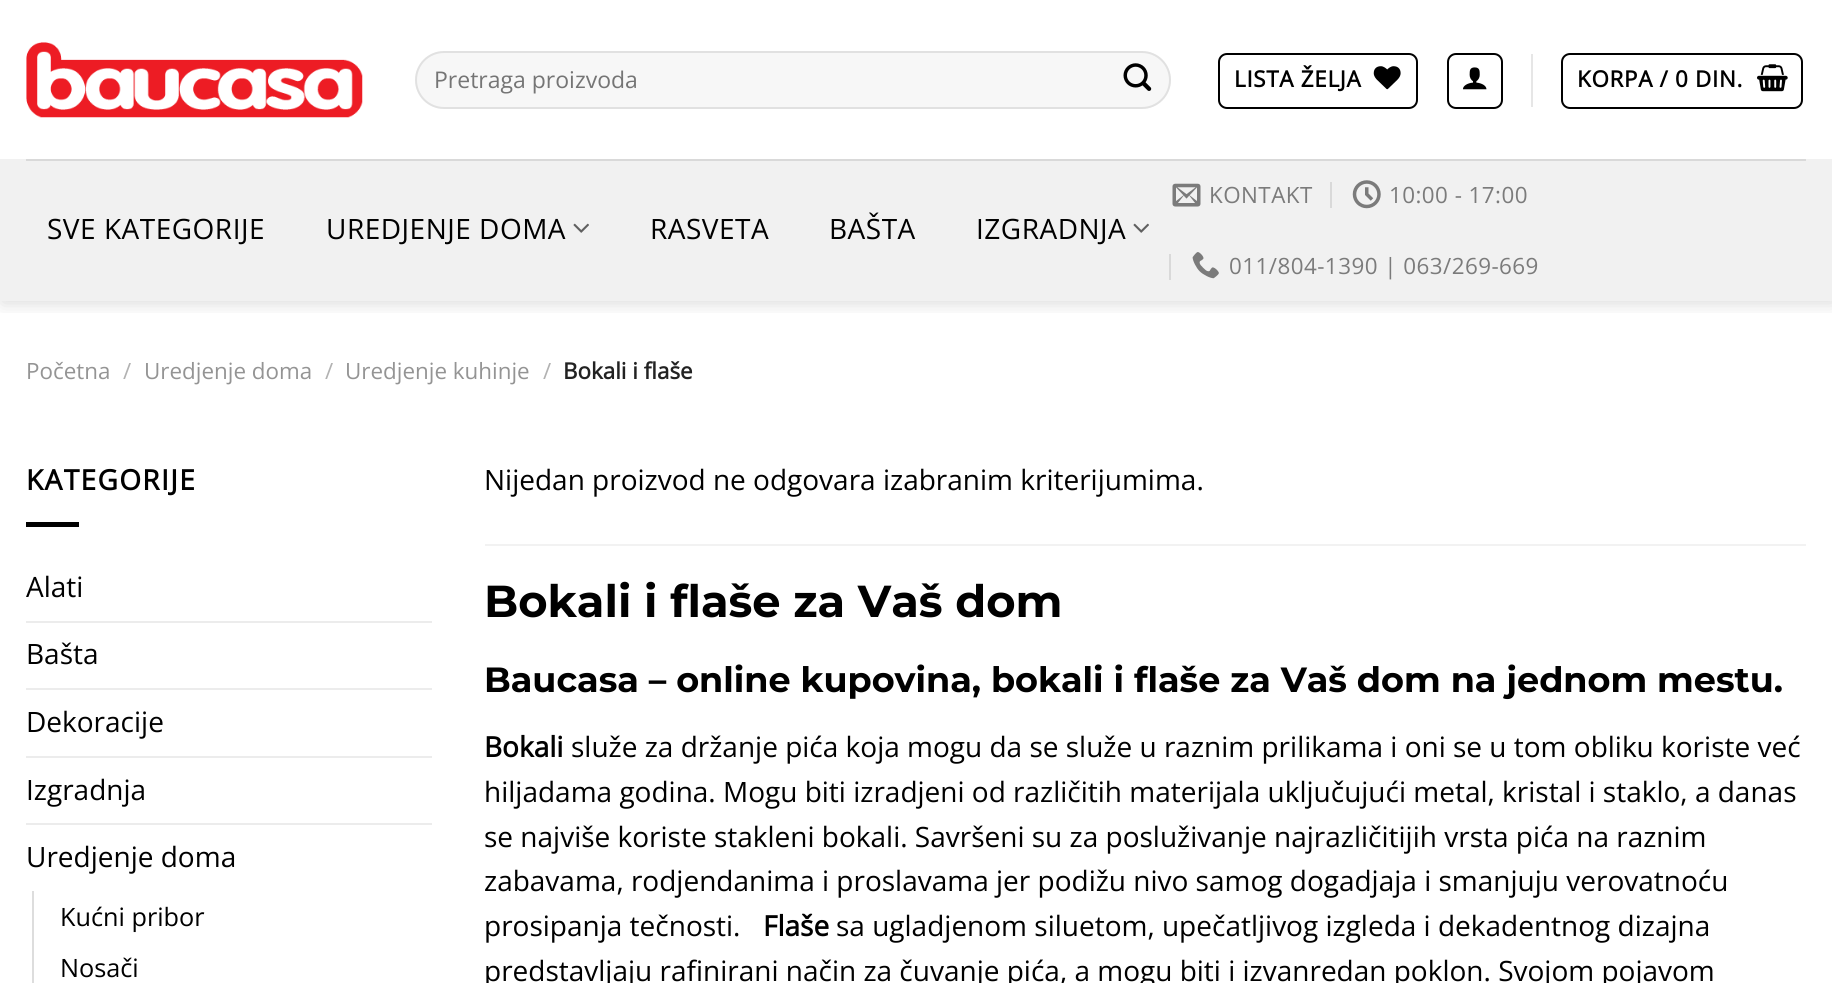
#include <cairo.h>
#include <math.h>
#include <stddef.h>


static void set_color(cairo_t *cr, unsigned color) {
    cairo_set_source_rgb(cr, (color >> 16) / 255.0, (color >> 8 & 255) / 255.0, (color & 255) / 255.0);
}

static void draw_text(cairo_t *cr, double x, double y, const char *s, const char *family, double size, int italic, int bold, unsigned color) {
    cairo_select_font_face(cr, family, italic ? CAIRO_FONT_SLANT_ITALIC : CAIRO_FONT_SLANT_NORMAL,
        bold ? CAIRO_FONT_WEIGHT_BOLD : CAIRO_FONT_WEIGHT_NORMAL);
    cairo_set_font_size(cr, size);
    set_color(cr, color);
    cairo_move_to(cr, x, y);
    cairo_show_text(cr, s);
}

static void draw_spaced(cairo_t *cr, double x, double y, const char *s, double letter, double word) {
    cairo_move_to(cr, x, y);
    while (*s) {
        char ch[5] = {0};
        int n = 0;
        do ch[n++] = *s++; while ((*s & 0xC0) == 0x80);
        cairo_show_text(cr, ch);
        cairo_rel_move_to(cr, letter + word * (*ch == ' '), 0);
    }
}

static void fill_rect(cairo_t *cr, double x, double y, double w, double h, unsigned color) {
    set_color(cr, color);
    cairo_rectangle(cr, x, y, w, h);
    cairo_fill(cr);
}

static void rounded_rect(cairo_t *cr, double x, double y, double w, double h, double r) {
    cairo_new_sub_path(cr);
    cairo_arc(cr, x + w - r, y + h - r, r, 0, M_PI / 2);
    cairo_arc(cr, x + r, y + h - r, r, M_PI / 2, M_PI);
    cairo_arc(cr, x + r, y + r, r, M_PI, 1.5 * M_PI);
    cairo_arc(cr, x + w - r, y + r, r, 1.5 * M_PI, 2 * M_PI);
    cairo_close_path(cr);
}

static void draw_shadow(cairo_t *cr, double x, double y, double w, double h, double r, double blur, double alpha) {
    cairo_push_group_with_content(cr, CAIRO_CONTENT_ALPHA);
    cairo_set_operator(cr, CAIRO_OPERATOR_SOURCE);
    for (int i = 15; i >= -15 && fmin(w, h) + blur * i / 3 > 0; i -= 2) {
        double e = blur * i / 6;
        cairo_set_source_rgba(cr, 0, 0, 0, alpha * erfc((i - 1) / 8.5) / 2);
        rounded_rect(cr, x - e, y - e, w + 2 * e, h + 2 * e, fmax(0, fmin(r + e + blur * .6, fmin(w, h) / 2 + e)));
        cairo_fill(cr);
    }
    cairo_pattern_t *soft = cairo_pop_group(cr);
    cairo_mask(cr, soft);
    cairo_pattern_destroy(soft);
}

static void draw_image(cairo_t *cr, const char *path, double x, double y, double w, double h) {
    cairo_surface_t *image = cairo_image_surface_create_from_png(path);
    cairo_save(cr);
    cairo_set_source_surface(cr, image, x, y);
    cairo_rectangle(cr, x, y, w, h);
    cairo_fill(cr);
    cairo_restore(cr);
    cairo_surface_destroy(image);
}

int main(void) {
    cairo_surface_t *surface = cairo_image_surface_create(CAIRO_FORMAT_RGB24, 1832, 983);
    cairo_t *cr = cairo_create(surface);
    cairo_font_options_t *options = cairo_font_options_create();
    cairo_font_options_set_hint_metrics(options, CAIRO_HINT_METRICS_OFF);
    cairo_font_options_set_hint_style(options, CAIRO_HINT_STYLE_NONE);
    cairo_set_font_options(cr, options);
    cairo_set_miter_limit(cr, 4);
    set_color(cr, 0xFFFFFF);
    cairo_paint(cr);
    cairo_save(cr);
    cairo_rectangle(cr, 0, 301, 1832, 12);
    cairo_clip(cr);
    set_color(cr, 0x000000);
    draw_shadow(cr, 2, 2, 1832, 301, 0, 9, 0.15);
    cairo_restore(cr);
    draw_image(cr, "assets/img1.png", 26, 42, 337, 76);
    set_color(cr, 0xF7F7F7);
    rounded_rect(cr, 415, 51, 756, 58, 29);
    cairo_fill(cr);
    rounded_rect(cr, 416, 52, 754, 56, 28);
    cairo_set_source_rgba(cr, 0, 0, 0, 0.09);
    cairo_stroke(cr);
    draw_text(cr, 434, 88, "Pretraga proizvoda", "Open Sans", 23, 0, 0, 0x757575);
    draw_image(cr, "assets/img2.png", 1123, 63, 29, 28);
    rounded_rect(cr, 1219, 54, 198, 54, 8);
    set_color(cr, 0x000000);
    cairo_stroke(cr);
    cairo_select_font_face(cr, "Open Sans", CAIRO_FONT_SLANT_NORMAL, CAIRO_FONT_WEIGHT_BOLD);
    cairo_set_font_size(cr, 22.4);
    draw_spaced(cr, 1234, 87, "LISTA ŽELJA", 0.7, 0);
    draw_image(cr, "assets/img3.png", 1373, 66, 28, 24);
    rounded_rect(cr, 1448, 54, 54, 54, 8);
    cairo_stroke(cr);
    draw_image(cr, "assets/img4.png", 1463, 67, 24, 23);
    fill_rect(cr, 1531, 54, 2, 53, 0xE6E6E6);
    rounded_rect(cr, 1562, 54, 240, 54, 8);
    set_color(cr, 0x000000);
    cairo_stroke(cr);
    draw_spaced(cr, 1577, 87, "KORPA / 0 DIN.", 0.7, 0);
    draw_image(cr, "assets/img5.png", 1757, 64, 31, 28);
    fill_rect(cr, 0, 159, 1832, 142, 0xF1F1F1);
    fill_rect(cr, 26, 159, 1780, 2, 0xD9D9D9);
    cairo_select_font_face(cr, "Open Sans", CAIRO_FONT_SLANT_NORMAL, CAIRO_FONT_WEIGHT_NORMAL);
    cairo_set_font_size(cr, 28);
    set_color(cr, 0x000000);
    draw_spaced(cr, 47, 239, "SVE KATEGORIJE", 0.5, 0);
    draw_spaced(cr, 326, 239, "UREDJENJE DOMA", 0.5, 0);
    draw_image(cr, "assets/img6.png", 573, 223, 16, 10);
    draw_spaced(cr, 650, 239, "RASVETA", 0.5, 0);
    draw_spaced(cr, 829, 239, "BAŠTA", 0.5, 0);
    draw_spaced(cr, 976, 239, "IZGRADNJA", 0.5, 0);
    draw_image(cr, "assets/img6.png", 1133, 223, 16, 10);
    draw_image(cr, "assets/img7.png", 1172, 183, 29, 24);
    cairo_set_font_size(cr, 22.4);
    set_color(cr, 0x7B7B7B);
    draw_spaced(cr, 1209, 203, "KONTAKT", 0.45, 0);
    fill_rect(cr, 1330, 182, 2, 26, 0xD9D9D9);
    draw_image(cr, "assets/img8.png", 1352, 180, 29, 29);
    set_color(cr, 0x7B7B7B);
    draw_spaced(cr, 1389, 203, "10:00 - 17:00", 0.45, 0);
    fill_rect(cr, 1169, 254, 2, 26, 0xD9D9D9);
    draw_image(cr, "assets/img9.png", 1192, 252, 27, 27);
    set_color(cr, 0x7B7B7B);
    draw_spaced(cr, 1229, 274, "011/804-1390 | 063/269-669", 0.45, 0);
    draw_text(cr, 26, 379, "Početna", "Open Sans", 22.4, 0, 0, 0x949494);
    draw_text(cr, 123, 379, "/", "Open Sans", 22.4, 0, 0, 0xB2B2B2);
    draw_text(cr, 144, 379, "Uredjenje doma", "Open Sans", 22.4, 0, 0, 0x949494);
    draw_text(cr, 325, 379, "/", "Open Sans", 22.4, 0, 0, 0xB2B2B2);
    draw_text(cr, 345, 379, "Uredjenje kuhinje", "Open Sans", 22.4, 0, 0, 0x949494);
    draw_text(cr, 543, 379, "/", "Open Sans", 22.4, 0, 0, 0xB2B2B2);
    draw_text(cr, 563, 379, "Bokali i flaše", "Open Sans", 22.4, 0, 1, 0x222222);
    cairo_set_font_size(cr, 28);
    set_color(cr, 0x000000);
    draw_spaced(cr, 26, 490, "KATEGORIJE", 1.4, 0);
    fill_rect(cr, 26, 522, 53, 5, 0x000000);
    draw_text(cr, 26, 597, "Alati", "Open Sans", 28, 0, 0, 0x000000);
    fill_rect(cr, 26, 621, 406, 2, 0xECECEC);
    draw_text(cr, 26, 664, "Bašta", "Open Sans", 28, 0, 0, 0x000000);
    fill_rect(cr, 26, 688, 406, 2, 0xECECEC);
    draw_text(cr, 26, 732, "Dekoracije", "Open Sans", 28, 0, 0, 0x000000);
    fill_rect(cr, 26, 756, 406, 2, 0xECECEC);
    draw_text(cr, 26, 800, "Izgradnja", "Open Sans", 28, 0, 0, 0x000000);
    fill_rect(cr, 26, 823, 406, 2, 0xECECEC);
    draw_text(cr, 26, 867, "Uredjenje doma", "Open Sans", 28, 0, 0, 0x000000);
    fill_rect(cr, 32, 891, 2, 92, 0xDDDDDD);
    draw_text(cr, 60, 926, "Kućni pribor", "Open Sans", 25.25, 0, 0, 0x000000);
    draw_text(cr, 60, 977, "Nosači", "Open Sans", 25.25, 0, 0, 0x000000);
    draw_text(cr, 484, 490, "Nijedan proizvod ne odgovara izabranim kriterijumima.", "Open Sans", 28, 0, 0, 0x000000);
    fill_rect(cr, 485, 544, 1321, 2, 0xF2F2F2);
    draw_text(cr, 484, 617, "Bokali i flaše za Vaš dom", "Montserrat", 44.75, 0, 1, 0x000000);
    draw_text(cr, 484, 692, "Baucasa – online kupovina, bokali i flaše za Vaš dom na jednom mestu.", "Montserrat", 35, 0, 1, 0x000000);
    draw_text(cr, 484, 757, "Bokali", "Open Sans", 28, 0, 1, 0x000000);
    draw_text(cr, 571, 757, "služe za držanje pića koja mogu da se služe u raznim prilikama i oni se u tom obliku koriste već", "Open Sans", 28, 0, 0, 0x000000);
    draw_text(cr, 484, 802, "hiljadama godina. Mogu biti izradjeni od različitih materijala uključujući metal, kristal i staklo, a danas", "Open Sans", 28, 0, 0, 0x000000);
    draw_text(cr, 484, 847, "se najviše koriste stakleni bokali. Savršeni su za posluživanje najrazličitijih vrsta pića na raznim", "Open Sans", 28, 0, 0, 0x000000);
    draw_text(cr, 484, 891, "zabavama, rodjendanima i proslavama jer podižu nivo samog dogadjaja i smanjuju verovatnoću", "Open Sans", 28, 0, 0, 0x000000);
    draw_text(cr, 484, 936, "prosipanja tečnosti.", "Open Sans", 28, 0, 0, 0x000000);
    draw_text(cr, 763, 936, "Flaše", "Open Sans", 28, 0, 1, 0x000000);
    draw_text(cr, 836, 936, "sa ugladjenom siluetom, upečatljivog izgleda i dekadentnog dizajna", "Open Sans", 28, 0, 0, 0x000000);
    draw_text(cr, 484, 981, "predstavljaju rafinirani način za čuvanje pića, a mogu biti i izvanredan poklon. Svojom pojavom", "Open Sans", 28, 0, 0, 0x000000);
    cairo_surface_write_to_png(surface, "output.png");
    cairo_font_options_destroy(options);
    cairo_destroy(cr);
    cairo_surface_destroy(surface);
    return 0;
}
